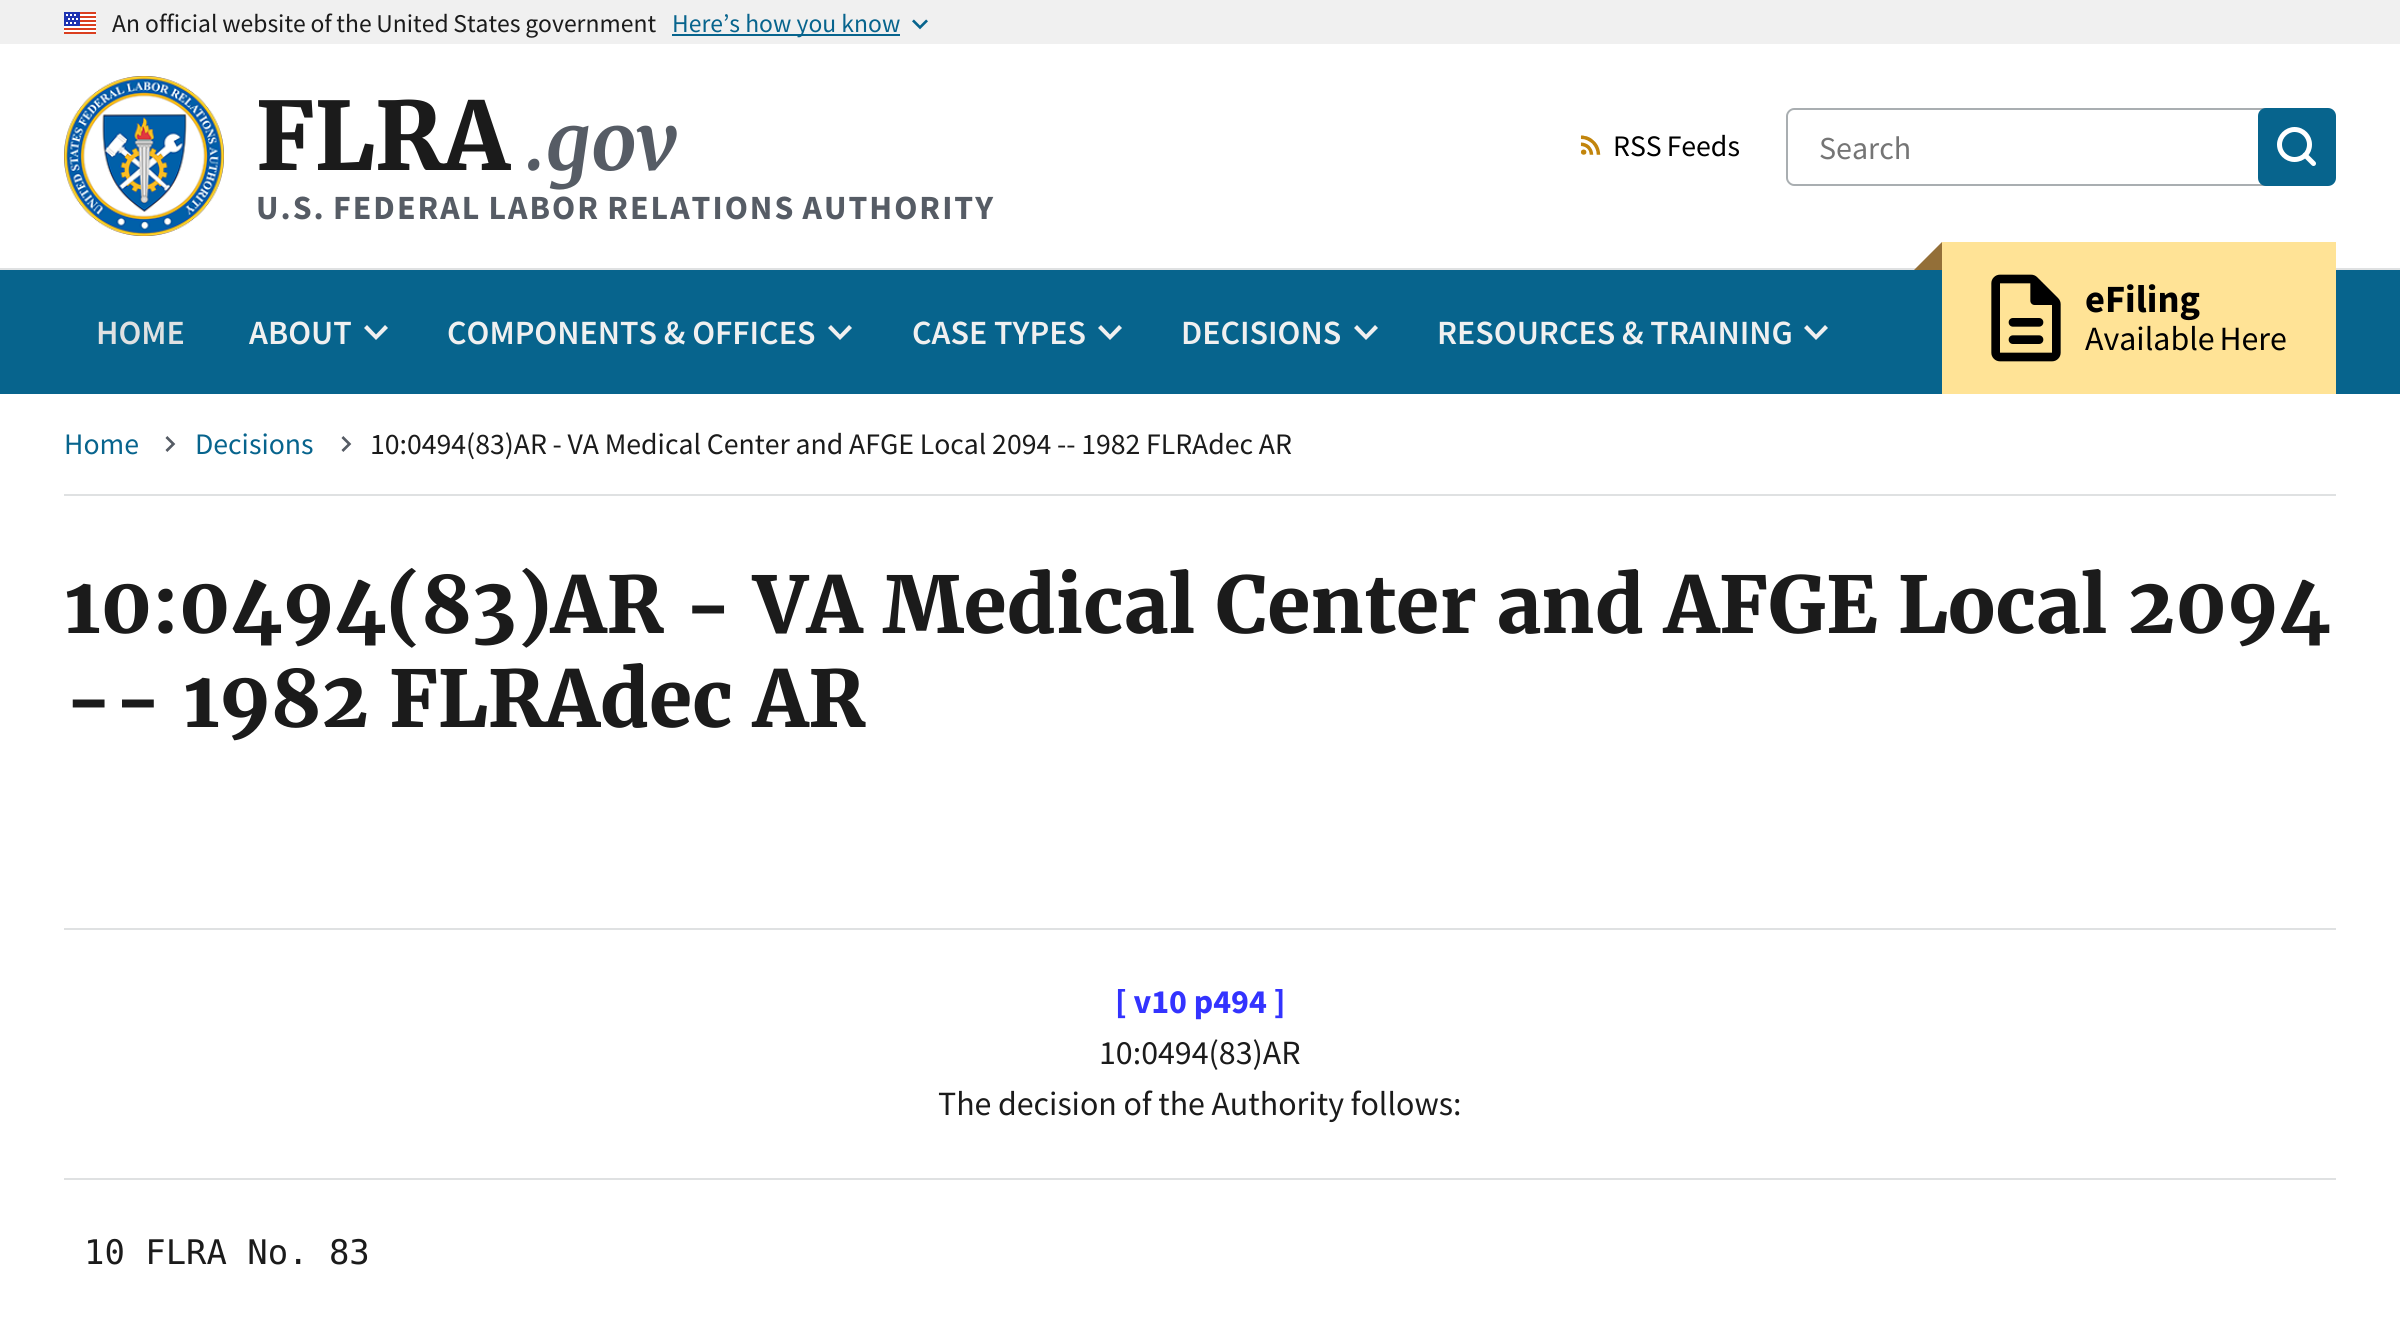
#include <cairo.h>
#include <math.h>
#include <stddef.h>


static void set_color(cairo_t *cr, unsigned color) {
    cairo_set_source_rgb(cr, (color >> 16) / 255.0, (color >> 8 & 255) / 255.0, (color & 255) / 255.0);
}

static void draw_text(cairo_t *cr, double x, double y, const char *s, const char *family, double size, int italic, int bold, unsigned color) {
    cairo_select_font_face(cr, family, italic ? CAIRO_FONT_SLANT_ITALIC : CAIRO_FONT_SLANT_NORMAL,
        bold ? CAIRO_FONT_WEIGHT_BOLD : CAIRO_FONT_WEIGHT_NORMAL);
    cairo_set_font_size(cr, size);
    set_color(cr, color);
    cairo_move_to(cr, x, y);
    cairo_show_text(cr, s);
}

static void draw_spaced(cairo_t *cr, double x, double y, const char *s, double letter, double word) {
    cairo_move_to(cr, x, y);
    while (*s) {
        char ch[5] = {0};
        int n = 0;
        do ch[n++] = *s++; while ((*s & 0xC0) == 0x80);
        cairo_show_text(cr, ch);
        cairo_rel_move_to(cr, letter + word * (*ch == ' '), 0);
    }
}

static void fill_rect(cairo_t *cr, double x, double y, double w, double h, unsigned color) {
    set_color(cr, color);
    cairo_rectangle(cr, x, y, w, h);
    cairo_fill(cr);
}

static void rounded_rect(cairo_t *cr, double x, double y, double w, double h, double r) {
    cairo_new_sub_path(cr);
    cairo_arc(cr, x + w - r, y + h - r, r, 0, M_PI / 2);
    cairo_arc(cr, x + r, y + h - r, r, M_PI / 2, M_PI);
    cairo_arc(cr, x + r, y + r, r, M_PI, 1.5 * M_PI);
    cairo_arc(cr, x + w - r, y + r, r, 1.5 * M_PI, 2 * M_PI);
    cairo_close_path(cr);
}

static void draw_image(cairo_t *cr, const char *path, double x, double y, double w, double h) {
    cairo_surface_t *image = cairo_image_surface_create_from_png(path);
    cairo_save(cr);
    cairo_set_source_surface(cr, image, x, y);
    cairo_rectangle(cr, x, y, w, h);
    cairo_fill(cr);
    cairo_restore(cr);
    cairo_surface_destroy(image);
}

int main(void) {
    cairo_surface_t *surface = cairo_image_surface_create(CAIRO_FORMAT_RGB24, 2400, 1320);
    cairo_t *cr = cairo_create(surface);
    cairo_font_options_t *options = cairo_font_options_create();
    cairo_font_options_set_hint_metrics(options, CAIRO_HINT_METRICS_OFF);
    cairo_font_options_set_hint_style(options, CAIRO_HINT_STYLE_NONE);
    cairo_set_font_options(cr, options);
    cairo_set_miter_limit(cr, 4);
    set_color(cr, 0xFFFFFF);
    cairo_paint(cr);
    fill_rect(cr, 0, 0, 2400, 44, 0xF0F0F0);
    draw_image(cr, "assets/img1.png", 64, 12, 32, 22);
    draw_text(cr, 112, 32, "An", "Source Sans Pro", 25.6, 0, 0, 0x1B1B1B);
    draw_spaced(cr, 145, 32, "official website of the United States government", 0, -0.5);
    fill_rect(cr, 672, 34, 228, 2, 0x07648D);
    draw_text(cr, 672, 32, "Here’s how you know", "Source Sans Pro", 25.6, 0, 0, 0x07648D);
    draw_image(cr, "assets/img2.png", 912, 19, 16, 11);
    draw_image(cr, "assets/img3.png", 64, 76, 160, 160);
    draw_text(cr, 256, 170, "FLRA", "Merriweather", 94, 0, 1, 0x1B1B1B);
    draw_text(cr, 525, 170, ".gov", "Merriweather", 78.1, 1, 1, 0x565C65);
    cairo_select_font_face(cr, "Source Sans Pro", CAIRO_FONT_SLANT_NORMAL, CAIRO_FONT_WEIGHT_BOLD);
    cairo_set_font_size(cr, 33.9);
    draw_spaced(cr, 256, 219, "U.S. FEDERAL LABOR RELATIONS AUTHORITY", 2, -1.5);
    fill_rect(cr, 0, 270, 2400, 124, 0x07648D);
    fill_rect(cr, 0, 268, 2400, 2, 0xDFE1E2);
    draw_image(cr, "assets/img4.png", 1580, 135, 21, 20);
    cairo_select_font_face(cr, "Source Sans Pro", CAIRO_FONT_SLANT_NORMAL, CAIRO_FONT_WEIGHT_NORMAL);
    cairo_set_font_size(cr, 29.75);
    set_color(cr, 0x000000);
    draw_spaced(cr, 1613, 156, "RSS Feeds", 0, -1);
    set_color(cr, 0xA9AEB1);
    cairo_set_fill_rule(cr, CAIRO_FILL_RULE_EVEN_ODD);
    cairo_new_path(cr);
    cairo_move_to(cr, 1794, 108);
    cairo_line_to(cr, 2290, 108);
    cairo_line_to(cr, 2290, 186);
    cairo_line_to(cr, 1794, 186);
    cairo_curve_to(cr, 1790, 186, 1786, 182, 1786, 178);
    cairo_line_to(cr, 1786, 116);
    cairo_curve_to(cr, 1786, 112, 1790, 108, 1794, 108);
    cairo_close_path(cr);
    cairo_move_to(cr, 1794, 110);
    cairo_line_to(cr, 2290, 110);
    cairo_line_to(cr, 2290, 184);
    cairo_line_to(cr, 1794, 184);
    cairo_curve_to(cr, 1791, 184, 1788, 181, 1788, 178);
    cairo_line_to(cr, 1788, 116);
    cairo_curve_to(cr, 1788, 113, 1791, 110, 1794, 110);
    cairo_close_path(cr);
    cairo_fill(cr);
    draw_text(cr, 1819, 159, "Search", "Source Sans Pro", 32, 0, 0, 0x757575);
    set_color(cr, 0x07648D);
    rounded_rect(cr, 2258, 108, 78, 78, 8);
    cairo_fill(cr);
    cairo_new_path(cr);
    cairo_move_to(cr, 2294.5, 159.5);
    cairo_curve_to(cr, 2303, 159.5, 2309.5, 153, 2309.5, 144.5);
    cairo_curve_to(cr, 2309.5, 136.5, 2303, 129.5, 2294.5, 129.5);
    cairo_curve_to(cr, 2286.5, 129.5, 2279.5, 136.5, 2279.5, 144.5);
    cairo_curve_to(cr, 2279.5, 153, 2286.5, 159.5, 2294.5, 159.5);
    cairo_close_path(cr);
    cairo_move_to(cr, 2313.5, 163.5);
    cairo_line_to(cr, 2305, 155);
    set_color(cr, 0xFFFFFF);
    cairo_set_line_width(cr, 5);
    cairo_set_line_cap(cr, CAIRO_LINE_CAP_ROUND);
    cairo_set_line_join(cr, CAIRO_LINE_JOIN_ROUND);
    cairo_stroke(cr);
    draw_text(cr, 96, 344, "HOME", "Source Sans Pro SemiBold", 33.9, 0, 0, 0xDFE1E2);
    draw_text(cr, 249, 344, "ABOUT", "Source Sans Pro SemiBold", 33.9, 0, 0, 0xF0F0F0);
    cairo_set_fill_rule(cr, CAIRO_FILL_RULE_WINDING);
    cairo_new_path(cr);
    cairo_move_to(cr, 385, 325);
    cairo_line_to(cr, 376, 334.5);
    cairo_line_to(cr, 367, 325);
    cairo_line_to(cr, 364, 328);
    cairo_line_to(cr, 376, 340);
    cairo_line_to(cr, 388, 328);
    cairo_close_path(cr);
    cairo_fill(cr);
    draw_text(cr, 447, 344, "COMPONENTS & OFFICES", "Source Sans Pro SemiBold", 33.9, 0, 0, 0xF0F0F0);
    cairo_new_path(cr);
    cairo_move_to(cr, 849, 325);
    cairo_line_to(cr, 840, 334.5);
    cairo_line_to(cr, 831, 325);
    cairo_line_to(cr, 828, 328);
    cairo_line_to(cr, 840, 340);
    cairo_line_to(cr, 852, 328);
    cairo_close_path(cr);
    cairo_fill(cr);
    draw_text(cr, 912, 344, "CASE TYPES", "Source Sans Pro SemiBold", 33.9, 0, 0, 0xF0F0F0);
    cairo_new_path(cr);
    cairo_move_to(cr, 1119, 325);
    cairo_line_to(cr, 1110, 334.5);
    cairo_line_to(cr, 1101, 325);
    cairo_line_to(cr, 1098, 328);
    cairo_line_to(cr, 1110, 340);
    cairo_line_to(cr, 1122, 328);
    cairo_close_path(cr);
    cairo_fill(cr);
    draw_text(cr, 1181, 344, "DECISIONS", "Source Sans Pro SemiBold", 33.9, 0, 0, 0xF0F0F0);
    cairo_new_path(cr);
    cairo_move_to(cr, 1375, 325);
    cairo_line_to(cr, 1366, 334.5);
    cairo_line_to(cr, 1357, 325);
    cairo_line_to(cr, 1354, 328);
    cairo_line_to(cr, 1366, 340);
    cairo_line_to(cr, 1378, 328);
    cairo_close_path(cr);
    cairo_fill(cr);
    draw_text(cr, 1437, 344, "RESOURCES & TRAINING", "Source Sans Pro SemiBold", 33.9, 0, 0, 0xF0F0F0);
    cairo_new_path(cr);
    cairo_move_to(cr, 1825, 325);
    cairo_line_to(cr, 1816, 334.5);
    cairo_line_to(cr, 1807, 325);
    cairo_line_to(cr, 1804, 328);
    cairo_line_to(cr, 1816, 340);
    cairo_line_to(cr, 1828, 328);
    cairo_close_path(cr);
    cairo_fill(cr);
    set_color(cr, 0x936F38);
    cairo_new_path(cr);
    cairo_move_to(cr, 1942, 270);
    cairo_line_to(cr, 1914, 270);
    cairo_line_to(cr, 1942, 242);
    cairo_close_path(cr);
    cairo_fill(cr);
    fill_rect(cr, 1942, 242, 394, 152, 0xFFE396);
    draw_image(cr, "assets/img5.png", 1991, 274, 70, 88);
    draw_text(cr, 2085, 312, "eFiling", "Source Sans Pro", 38.5, 0, 1, 0x000000);
    cairo_select_font_face(cr, "Source Sans Pro", CAIRO_FONT_SLANT_NORMAL, CAIRO_FONT_WEIGHT_NORMAL);
    cairo_set_font_size(cr, 33.9);
    draw_spaced(cr, 2085, 350, "Available Here", 0, -2);
    fill_rect(cr, 64, 494, 2272, 2, 0xDFE1E2);
    draw_text(cr, 64, 454, "Home", "Source Sans Pro", 29.75, 0, 0, 0x07648D);
    draw_image(cr, "assets/img6.png", 165, 436, 11, 16);
    draw_text(cr, 195, 454, "Decisions", "Source Sans Pro", 29.75, 0, 0, 0x07648D);
    draw_image(cr, "assets/img6.png", 341, 436, 11, 16);
    set_color(cr, 0x1B1B1B);
    draw_spaced(cr, 370, 454, "10:0494(83)AR - VA Medical Center and AFGE Local 2094 -- 1982 FLRAdec AR", 0, -0.25);
    draw_text(cr, 64, 633, "10:0494(83)AR - VA Medical Center and AFGE Local 2094", "Merriweather", 78.1, 0, 1, 0x1B1B1B);
    draw_text(cr, 64, 727, "-- 1982 FLRAdec AR", "Merriweather", 78.1, 0, 1, 0x1B1B1B);
    fill_rect(cr, 64, 928, 2272, 2, 0xDFE1E2);
    draw_text(cr, 1115, 1013, "[ v10 p494 ]", "Source Sans Pro", 33.9, 0, 1, 0x3333FF);
    draw_text(cr, 1099, 1064, "10:0494(83)AR", "Source Sans Pro", 33.9, 0, 0, 0x1B1B1B);
    draw_spaced(cr, 938, 1115, "The decision of the Authority follows:", 0, -0.25);
    fill_rect(cr, 64, 1178, 2272, 2, 0xDFE1E2);
    draw_text(cr, 84, 1264, "10 FLRA No. 83", "DejaVu Sans Mono", 33.9, 0, 0, 0x1B1B1B);
    cairo_surface_write_to_png(surface, "output.png");
    cairo_font_options_destroy(options);
    cairo_destroy(cr);
    cairo_surface_destroy(surface);
    return 0;
}
